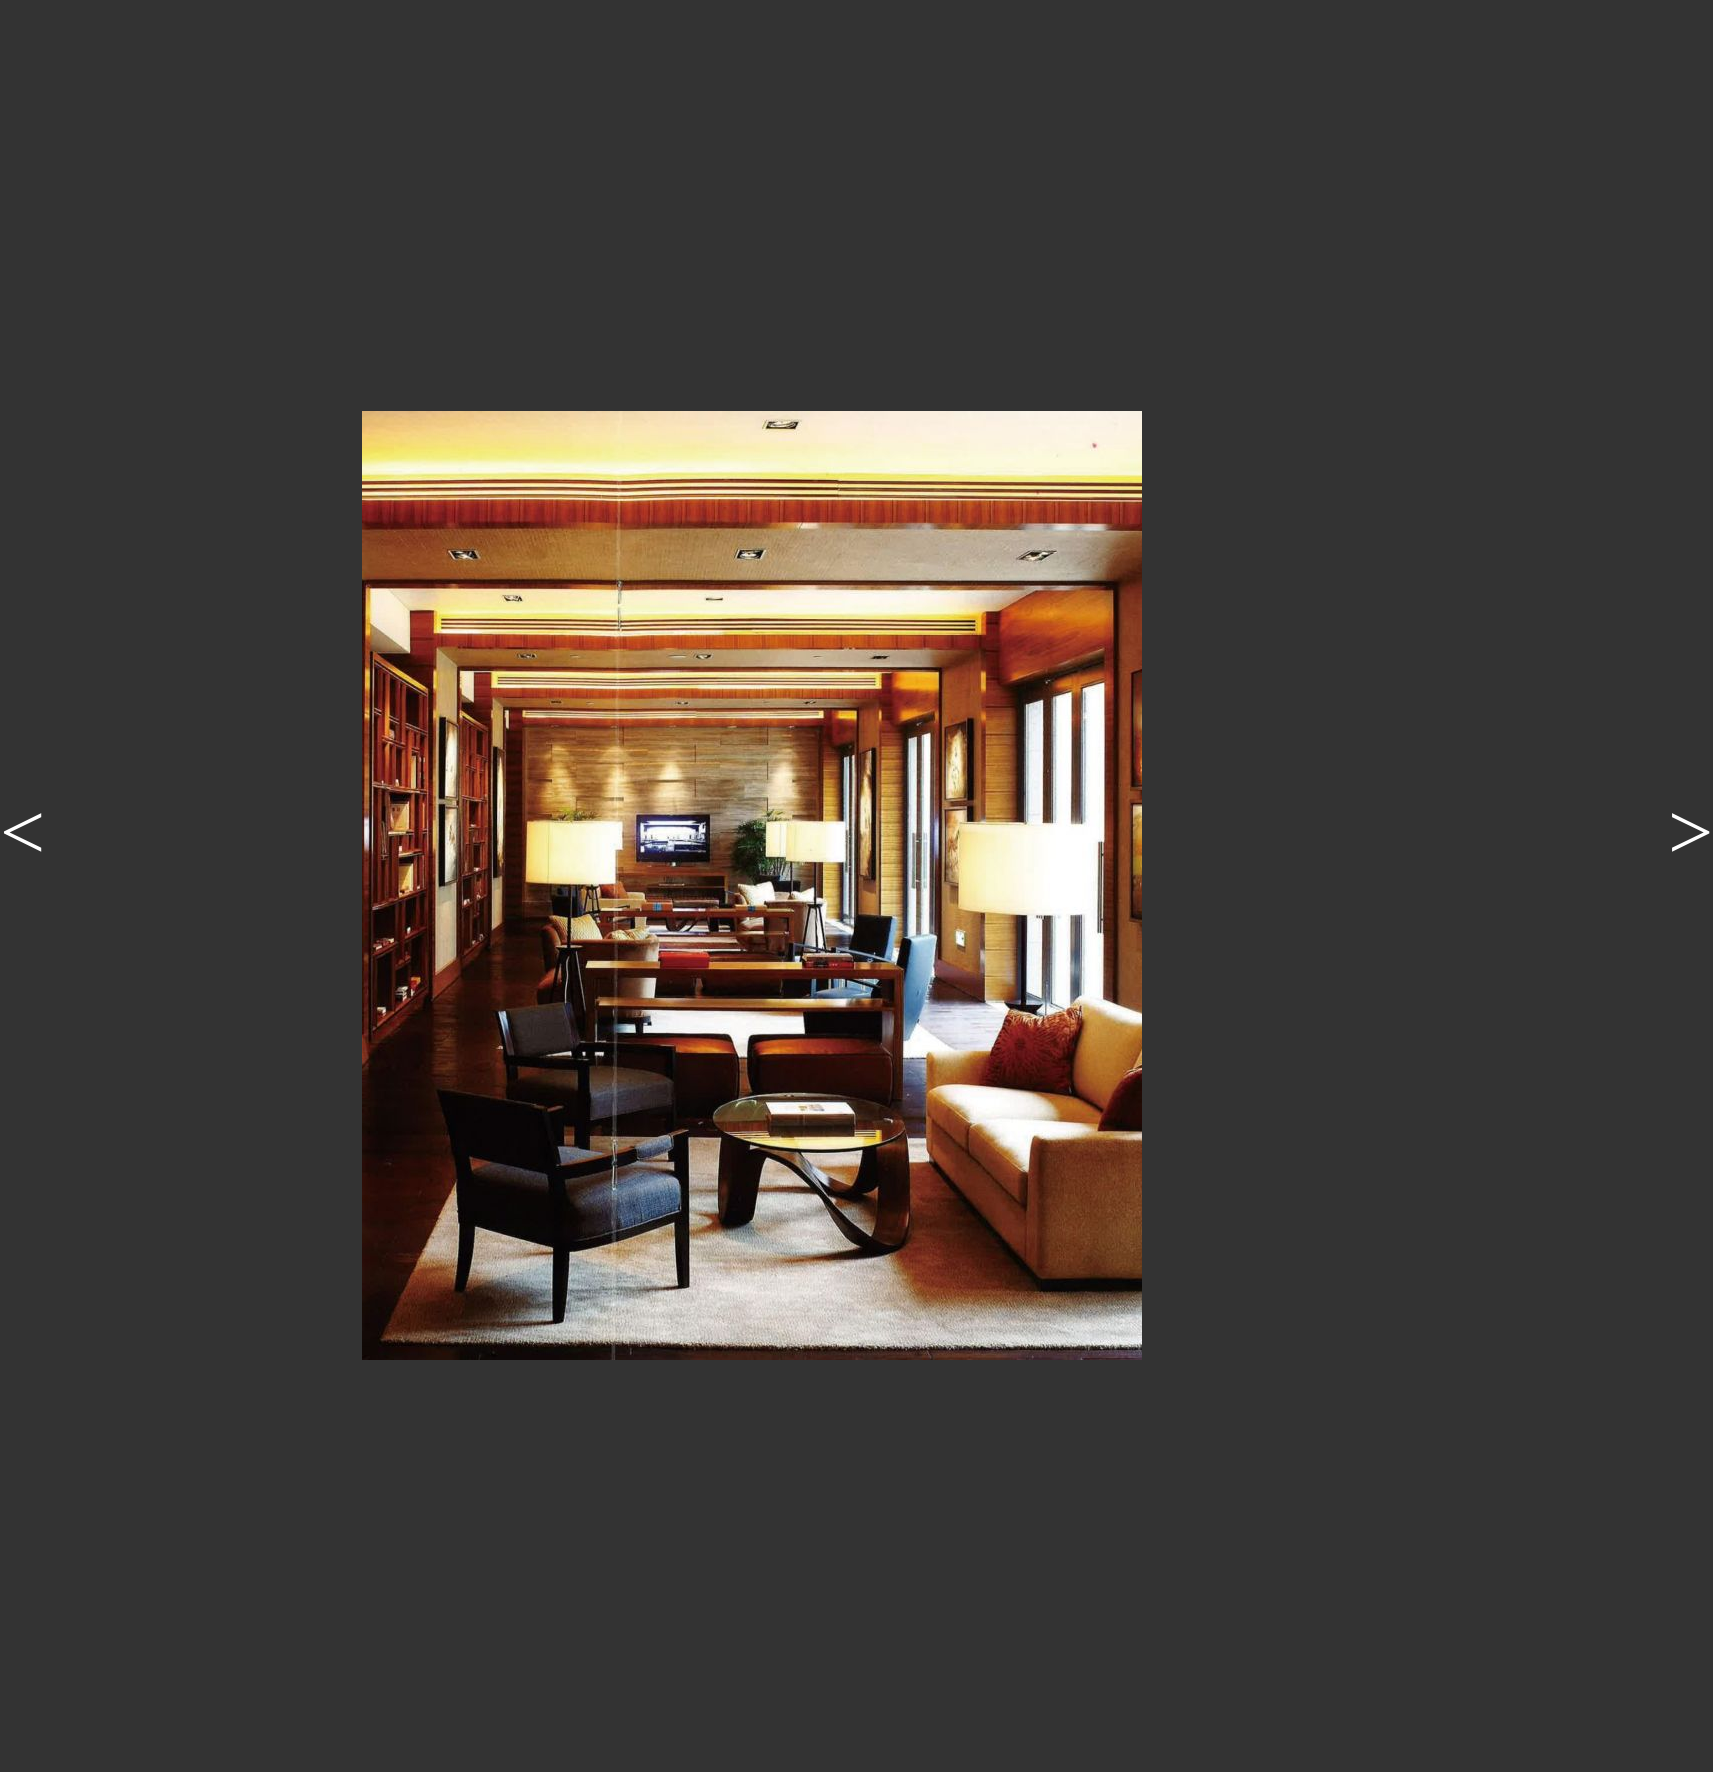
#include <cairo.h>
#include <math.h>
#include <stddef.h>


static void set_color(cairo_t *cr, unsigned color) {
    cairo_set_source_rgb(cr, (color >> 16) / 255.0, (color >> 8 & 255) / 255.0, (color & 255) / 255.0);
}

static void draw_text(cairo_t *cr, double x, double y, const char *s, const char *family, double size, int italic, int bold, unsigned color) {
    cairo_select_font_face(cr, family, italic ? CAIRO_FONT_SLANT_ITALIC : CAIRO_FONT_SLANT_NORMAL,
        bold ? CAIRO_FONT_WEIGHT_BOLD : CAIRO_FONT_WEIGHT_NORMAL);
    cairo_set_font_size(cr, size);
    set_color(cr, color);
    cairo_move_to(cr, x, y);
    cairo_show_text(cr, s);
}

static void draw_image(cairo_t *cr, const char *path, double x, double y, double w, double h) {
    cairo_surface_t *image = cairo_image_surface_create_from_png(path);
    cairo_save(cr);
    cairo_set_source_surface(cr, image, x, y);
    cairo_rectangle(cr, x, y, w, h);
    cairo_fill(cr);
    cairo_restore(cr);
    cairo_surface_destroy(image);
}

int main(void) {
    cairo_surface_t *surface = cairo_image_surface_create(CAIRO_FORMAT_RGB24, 1713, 1772);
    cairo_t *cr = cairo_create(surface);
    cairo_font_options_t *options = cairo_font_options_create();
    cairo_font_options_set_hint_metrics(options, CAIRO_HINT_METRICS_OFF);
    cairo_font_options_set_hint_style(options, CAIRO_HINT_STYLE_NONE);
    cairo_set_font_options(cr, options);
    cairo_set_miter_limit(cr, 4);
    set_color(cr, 0x333333);
    cairo_paint(cr);
    draw_text(cr, 0, 859, "<", "Liberation Serif", 80, 0, 0, 0xFFFFFF);
    draw_image(cr, "assets/img1.png", 362, 411, 780, 949);
    draw_text(cr, 1668, 859, ">", "Liberation Serif", 80, 0, 0, 0xFFFFFF);
    cairo_surface_write_to_png(surface, "output.png");
    cairo_font_options_destroy(options);
    cairo_destroy(cr);
    cairo_surface_destroy(surface);
    return 0;
}
